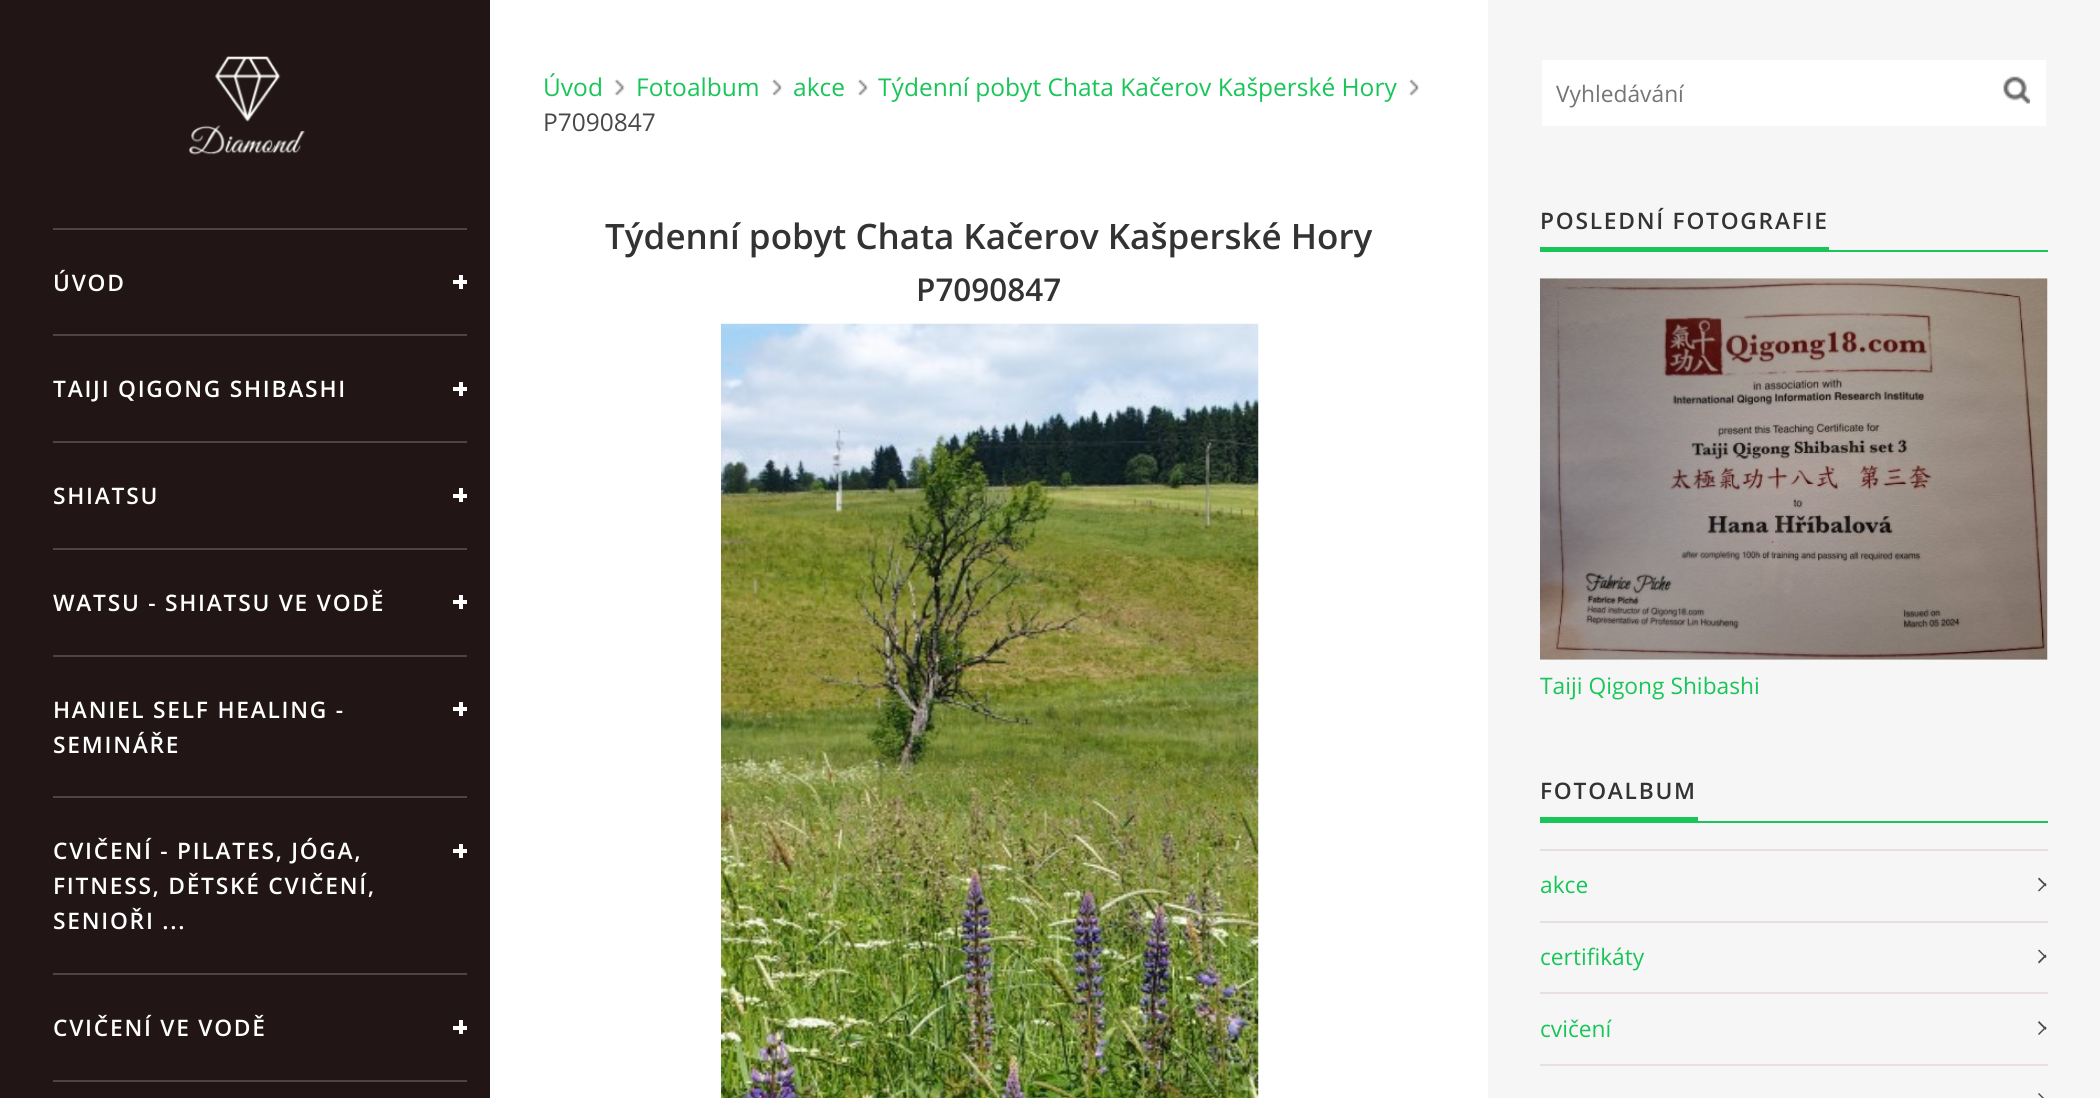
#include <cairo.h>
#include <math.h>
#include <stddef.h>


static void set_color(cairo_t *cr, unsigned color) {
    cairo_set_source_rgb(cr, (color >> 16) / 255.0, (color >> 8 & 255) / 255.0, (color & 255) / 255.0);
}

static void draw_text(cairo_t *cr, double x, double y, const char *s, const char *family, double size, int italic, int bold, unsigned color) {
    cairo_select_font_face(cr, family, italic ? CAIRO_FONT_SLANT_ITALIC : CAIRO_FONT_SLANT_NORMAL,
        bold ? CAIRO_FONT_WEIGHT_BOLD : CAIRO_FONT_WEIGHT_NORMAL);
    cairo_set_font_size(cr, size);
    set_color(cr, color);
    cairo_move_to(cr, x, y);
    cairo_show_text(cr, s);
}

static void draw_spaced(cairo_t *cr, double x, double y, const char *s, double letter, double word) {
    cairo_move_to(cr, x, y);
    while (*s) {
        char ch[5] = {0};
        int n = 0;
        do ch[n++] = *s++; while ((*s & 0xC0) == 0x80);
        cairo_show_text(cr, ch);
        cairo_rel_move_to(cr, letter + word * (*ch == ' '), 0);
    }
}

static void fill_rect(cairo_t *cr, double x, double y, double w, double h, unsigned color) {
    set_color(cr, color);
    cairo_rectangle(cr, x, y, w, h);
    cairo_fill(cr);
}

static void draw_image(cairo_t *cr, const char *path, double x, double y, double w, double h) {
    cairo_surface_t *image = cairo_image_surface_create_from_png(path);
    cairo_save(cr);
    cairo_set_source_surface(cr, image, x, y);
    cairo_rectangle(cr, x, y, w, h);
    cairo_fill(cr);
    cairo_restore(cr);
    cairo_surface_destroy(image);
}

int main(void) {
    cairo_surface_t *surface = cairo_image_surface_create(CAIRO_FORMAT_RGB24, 2100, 1098);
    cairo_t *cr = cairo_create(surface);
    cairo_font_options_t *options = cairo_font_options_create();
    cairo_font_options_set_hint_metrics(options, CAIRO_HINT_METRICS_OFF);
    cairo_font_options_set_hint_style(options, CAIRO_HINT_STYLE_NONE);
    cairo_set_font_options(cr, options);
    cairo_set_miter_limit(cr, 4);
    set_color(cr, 0xFFFFFF);
    cairo_paint(cr);
    fill_rect(cr, 0, 0, 490, 1098, 0x211515);
    draw_image(cr, "assets/img1.png", 189, 56, 116, 99);
    fill_rect(cr, 53, 228, 414, 2, 0x4D4444);
    cairo_select_font_face(cr, "Open Sans SemiBold", CAIRO_FONT_SLANT_NORMAL, CAIRO_FONT_WEIGHT_NORMAL);
    cairo_set_font_size(cr, 22.75);
    set_color(cr, 0xFFFFFF);
    draw_spaced(cr, 53, 291, "ÚVOD", 1.75, 0);
    fill_rect(cr, 453, 280, 14, 4, 0xFFFFFF);
    fill_rect(cr, 459, 275, 4, 14, 0xFFFFFF);
    fill_rect(cr, 53, 334, 414, 2, 0x4D4444);
    set_color(cr, 0xFFFFFF);
    draw_spaced(cr, 53, 397, "TAIJI QIGONG SHIBASHI", 1.75, 0);
    fill_rect(cr, 453, 387, 14, 4, 0xFFFFFF);
    fill_rect(cr, 459, 382, 4, 14, 0xFFFFFF);
    fill_rect(cr, 53, 441, 414, 2, 0x4D4444);
    set_color(cr, 0xFFFFFF);
    draw_spaced(cr, 53, 504, "SHIATSU", 1.75, 0);
    fill_rect(cr, 453, 494, 14, 4, 0xFFFFFF);
    fill_rect(cr, 459, 488, 4, 14, 0xFFFFFF);
    fill_rect(cr, 53, 548, 414, 2, 0x4D4444);
    set_color(cr, 0xFFFFFF);
    draw_spaced(cr, 53, 611, "WATSU - SHIATSU VE VODĚ", 1.75, 0);
    fill_rect(cr, 453, 600, 14, 4, 0xFFFFFF);
    fill_rect(cr, 459, 595, 4, 14, 0xFFFFFF);
    fill_rect(cr, 53, 655, 414, 2, 0x4D4444);
    set_color(cr, 0xFFFFFF);
    draw_spaced(cr, 53, 718, "HANIEL SELF HEALING -", 1.75, 0);
    fill_rect(cr, 453, 707, 14, 4, 0xFFFFFF);
    fill_rect(cr, 459, 702, 4, 14, 0xFFFFFF);
    draw_spaced(cr, 53, 753, "SEMINÁŘE", 1.75, 0);
    fill_rect(cr, 53, 796, 414, 2, 0x4D4444);
    set_color(cr, 0xFFFFFF);
    draw_spaced(cr, 53, 859, "CVIČENÍ - PILATES, JÓGA,", 1.75, 0);
    fill_rect(cr, 453, 849, 14, 4, 0xFFFFFF);
    fill_rect(cr, 459, 844, 4, 14, 0xFFFFFF);
    draw_spaced(cr, 53, 894, "FITNESS, DĚTSKÉ CVIČENÍ,", 1.75, 0);
    draw_spaced(cr, 53, 929, "SENIOŘI ...", 1.75, 0);
    fill_rect(cr, 53, 973, 414, 2, 0x4D4444);
    set_color(cr, 0xFFFFFF);
    draw_spaced(cr, 53, 1036, "CVIČENÍ VE VODĚ", 1.75, 0);
    fill_rect(cr, 453, 1026, 14, 4, 0xFFFFFF);
    fill_rect(cr, 459, 1020, 4, 14, 0xFFFFFF);
    fill_rect(cr, 53, 1080, 414, 2, 0x4D4444);
    draw_image(cr, "assets/img2.png", 614, 79, 11, 17);
    draw_text(cr, 543, 96, "Úvod", "Open Sans", 24.5, 0, 0, 0x19C559);
    draw_image(cr, "assets/img3.png", 771, 78, 12, 19);
    draw_text(cr, 636, 96, "Fotoalbum", "Open Sans", 24.5, 0, 0, 0x19C559);
    draw_image(cr, "assets/img4.png", 857, 79, 11, 17);
    draw_text(cr, 793, 96, "akce", "Open Sans", 24.5, 0, 0, 0x19C559);
    draw_image(cr, "assets/img5.png", 1408, 78, 12, 19);
    draw_text(cr, 878, 96, "Týdenní pobyt Chata Kačerov Kašperské Hory", "Open Sans", 24.5, 0, 0, 0x19C559);
    draw_text(cr, 543, 131, "P7090847", "Open Sans", 24.5, 0, 0, 0x484848);
    draw_text(cr, 605, 249, "Týdenní pobyt Chata Kačerov Kašperské Hory", "Open Sans SemiBold", 35, 0, 0, 0x333333);
    draw_text(cr, 916, 301, "P7090847", "Open Sans SemiBold", 31.5, 0, 0, 0x333333);
    draw_image(cr, "assets/img6.png", 721, 323, 538, 775);
    fill_rect(cr, 1488, 0, 612, 1098, 0xF6F6F6);
    fill_rect(cr, 1542, 60, 504, 66, 0xFFFFFF);
    draw_text(cr, 1556, 102, "Vyhledávání", "Open Sans", 22.75, 0, 0, 0x757575);
    draw_image(cr, "assets/img7.png", 2003, 76, 27, 28);
    cairo_select_font_face(cr, "Open Sans SemiBold", CAIRO_FONT_SLANT_NORMAL, CAIRO_FONT_WEIGHT_NORMAL);
    set_color(cr, 0x333333);
    draw_spaced(cr, 1540, 229, "POSLEDNÍ FOTOGRAFIE", 1.75, 0);
    fill_rect(cr, 1540, 247, 289, 3, 0x19C559);
    fill_rect(cr, 1540, 250, 508, 2, 0x19C559);
    draw_image(cr, "assets/img8.png", 1540, 278, 508, 382);
    draw_text(cr, 1540, 694, "Taiji Qigong Shibashi", "Open Sans", 22.75, 0, 0, 0x19C559);
    cairo_select_font_face(cr, "Open Sans SemiBold", CAIRO_FONT_SLANT_NORMAL, CAIRO_FONT_WEIGHT_NORMAL);
    set_color(cr, 0x333333);
    draw_spaced(cr, 1540, 799, "FOTOALBUM", 1.75, 0);
    fill_rect(cr, 1540, 817, 158, 4, 0x19C559);
    fill_rect(cr, 1540, 821, 508, 2, 0x19C559);
    fill_rect(cr, 1540, 849, 508, 2, 0xE8DFDF);
    fill_rect(cr, 1540, 921, 508, 2, 0xE8DFDF);
    draw_text(cr, 1540, 893, "akce", "Open Sans", 22.75, 0, 0, 0x19C559);
    set_color(cr, 0x484848);
    cairo_new_path(cr);
    cairo_move_to(cr, 2039, 877.5);
    cairo_line_to(cr, 2046.5, 885);
    cairo_line_to(cr, 2045.5, 886.5);
    cairo_line_to(cr, 2038, 879);
    cairo_close_path(cr);
    cairo_fill(cr);
    cairo_new_path(cr);
    cairo_move_to(cr, 2038, 890.5);
    cairo_line_to(cr, 2045.5, 883);
    cairo_line_to(cr, 2046.5, 884);
    cairo_line_to(cr, 2039, 891.5);
    cairo_close_path(cr);
    cairo_fill(cr);
    fill_rect(cr, 1540, 992, 508, 2, 0xE8DFDF);
    draw_text(cr, 1540, 965, "certifikáty", "Open Sans", 22.75, 0, 0, 0x19C559);
    set_color(cr, 0x484848);
    cairo_new_path(cr);
    cairo_move_to(cr, 2039, 949.5);
    cairo_line_to(cr, 2046.5, 957);
    cairo_line_to(cr, 2045.5, 958);
    cairo_line_to(cr, 2038, 950.5);
    cairo_close_path(cr);
    cairo_fill(cr);
    cairo_new_path(cr);
    cairo_move_to(cr, 2038, 962);
    cairo_line_to(cr, 2045.5, 954.5);
    cairo_line_to(cr, 2046.5, 956);
    cairo_line_to(cr, 2039, 963.5);
    cairo_close_path(cr);
    cairo_fill(cr);
    fill_rect(cr, 1540, 1064, 508, 2, 0xE8DFDF);
    draw_text(cr, 1540, 1037, "cvičení", "Open Sans", 22.75, 0, 0, 0x19C559);
    set_color(cr, 0x484848);
    cairo_new_path(cr);
    cairo_move_to(cr, 2039, 1021);
    cairo_line_to(cr, 2046.5, 1028.5);
    cairo_line_to(cr, 2045.5, 1030);
    cairo_line_to(cr, 2038, 1022.5);
    cairo_close_path(cr);
    cairo_fill(cr);
    cairo_new_path(cr);
    cairo_move_to(cr, 2038, 1034);
    cairo_line_to(cr, 2045.5, 1026.5);
    cairo_line_to(cr, 2046.5, 1027.5);
    cairo_line_to(cr, 2039, 1035);
    cairo_close_path(cr);
    cairo_fill(cr);
    cairo_new_path(cr);
    cairo_move_to(cr, 2039, 1093);
    cairo_line_to(cr, 2046.5, 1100.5);
    cairo_line_to(cr, 2045.5, 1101.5);
    cairo_line_to(cr, 2038, 1094);
    cairo_close_path(cr);
    cairo_fill(cr);
    cairo_surface_write_to_png(surface, "output.png");
    cairo_font_options_destroy(options);
    cairo_destroy(cr);
    cairo_surface_destroy(surface);
    return 0;
}
